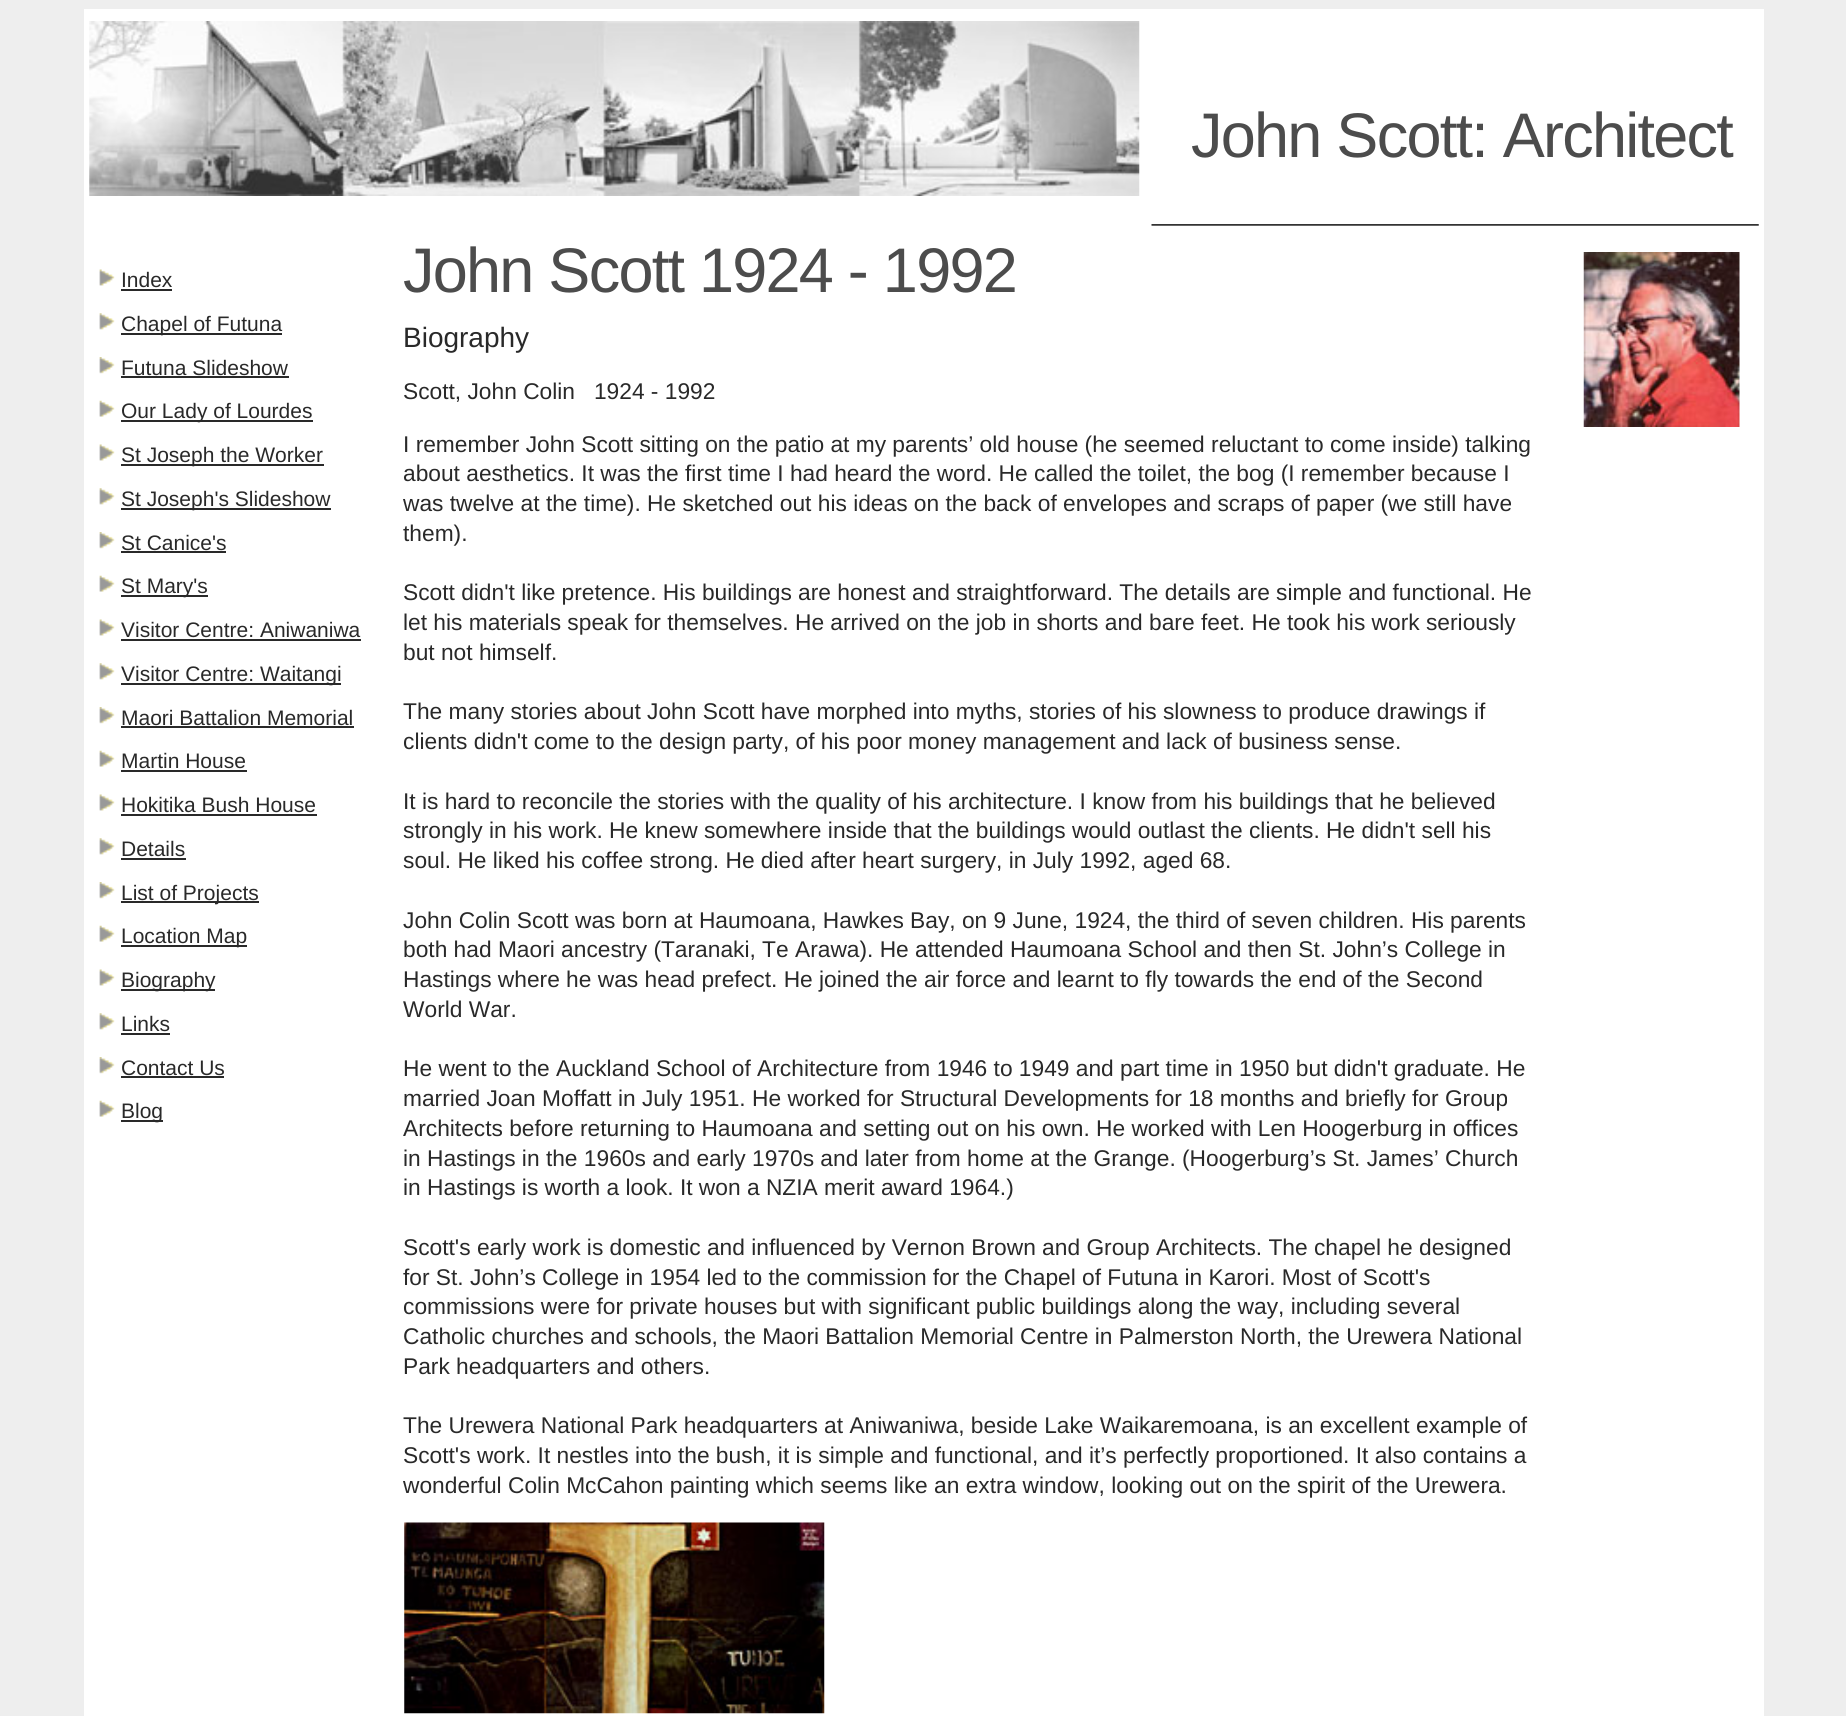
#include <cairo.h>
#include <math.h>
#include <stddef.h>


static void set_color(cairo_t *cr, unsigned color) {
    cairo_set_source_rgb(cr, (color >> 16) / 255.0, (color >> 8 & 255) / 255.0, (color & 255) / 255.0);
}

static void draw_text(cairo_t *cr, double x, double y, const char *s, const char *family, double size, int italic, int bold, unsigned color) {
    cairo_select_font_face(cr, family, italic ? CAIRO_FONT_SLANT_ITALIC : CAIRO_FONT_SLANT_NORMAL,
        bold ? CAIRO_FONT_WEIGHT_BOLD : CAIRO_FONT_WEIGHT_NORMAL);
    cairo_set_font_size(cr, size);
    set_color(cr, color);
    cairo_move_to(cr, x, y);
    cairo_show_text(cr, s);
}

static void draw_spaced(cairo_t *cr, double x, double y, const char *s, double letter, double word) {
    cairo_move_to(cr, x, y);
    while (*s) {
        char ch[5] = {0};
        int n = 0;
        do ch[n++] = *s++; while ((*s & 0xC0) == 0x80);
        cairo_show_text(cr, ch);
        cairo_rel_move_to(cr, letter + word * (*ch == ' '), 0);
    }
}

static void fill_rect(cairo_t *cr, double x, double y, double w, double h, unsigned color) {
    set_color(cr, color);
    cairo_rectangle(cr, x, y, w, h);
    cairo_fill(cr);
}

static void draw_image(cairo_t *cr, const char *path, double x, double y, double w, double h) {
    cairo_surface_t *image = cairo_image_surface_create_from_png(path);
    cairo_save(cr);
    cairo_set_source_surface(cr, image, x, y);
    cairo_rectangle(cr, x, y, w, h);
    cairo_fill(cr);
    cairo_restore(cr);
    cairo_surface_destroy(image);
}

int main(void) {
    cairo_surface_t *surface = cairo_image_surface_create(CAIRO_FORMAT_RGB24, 1846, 1716);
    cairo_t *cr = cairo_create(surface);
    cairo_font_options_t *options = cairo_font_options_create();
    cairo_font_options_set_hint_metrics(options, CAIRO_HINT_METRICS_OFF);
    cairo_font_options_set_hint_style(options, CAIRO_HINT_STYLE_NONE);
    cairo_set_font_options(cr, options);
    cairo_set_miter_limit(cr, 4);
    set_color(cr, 0xEEEEEE);
    cairo_paint(cr);
    fill_rect(cr, 84, 9, 1680, 1707, 0xFFFFFF);
    draw_image(cr, "assets/img1.png", 89, 21, 1051, 175);
    cairo_select_font_face(cr, "Liberation Sans", CAIRO_FONT_SLANT_NORMAL, CAIRO_FONT_WEIGHT_NORMAL);
    cairo_set_font_size(cr, 63);
    set_color(cr, 0x4C4C4C);
    draw_spaced(cr, 1191, 157, "John Scott: Architect", -1.75, 0);
    draw_image(cr, "assets/img2.png", 1151, 224, 608, 2);
    draw_image(cr, "assets/img3.png", 99, 269, 16, 17);
    draw_text(cr, 121, 287, "Index", "Liberation Sans", 21, 0, 0, 0x292929);
    fill_rect(cr, 121, 289, 51, 2, 0x292929);
    draw_image(cr, "assets/img4.png", 99, 313, 16, 17);
    fill_rect(cr, 121, 333, 161, 2, 0x292929);
    draw_text(cr, 121, 331, "Chapel of Futuna", "Liberation Sans", 21, 0, 0, 0x292929);
    draw_image(cr, "assets/img5.png", 99, 357, 16, 17);
    draw_text(cr, 121, 375, "Futuna Slideshow", "Liberation Sans", 21, 0, 0, 0x292929);
    fill_rect(cr, 121, 376, 168, 2, 0x292929);
    draw_image(cr, "assets/img6.png", 99, 400, 16, 17);
    fill_rect(cr, 121, 420, 192, 2, 0x292929);
    draw_text(cr, 121, 418, "Our Lady of Lourdes", "Liberation Sans", 21, 0, 0, 0x292929);
    draw_image(cr, "assets/img3.png", 99, 444, 16, 17);
    fill_rect(cr, 121, 464, 203, 2, 0x292929);
    draw_text(cr, 121, 462, "St Joseph the Worker", "Liberation Sans", 21, 0, 0, 0x292929);
    draw_image(cr, "assets/img4.png", 99, 488, 16, 17);
    fill_rect(cr, 121, 508, 210, 2, 0x292929);
    draw_text(cr, 121, 506, "St Joseph's Slideshow", "Liberation Sans", 21, 0, 0, 0x292929);
    draw_image(cr, "assets/img5.png", 99, 532, 16, 17);
    draw_text(cr, 121, 550, "St Canice's", "Liberation Sans", 21, 0, 0, 0x292929);
    fill_rect(cr, 121, 551, 105, 2, 0x292929);
    draw_image(cr, "assets/img6.png", 99, 575, 16, 17);
    fill_rect(cr, 121, 595, 87, 2, 0x292929);
    draw_text(cr, 121, 593, "St Mary's", "Liberation Sans", 21, 0, 0, 0x292929);
    draw_image(cr, "assets/img3.png", 99, 619, 16, 17);
    draw_text(cr, 121, 637, "Visitor Centre: Aniwaniwa", "Liberation Sans", 21, 0, 0, 0x292929);
    fill_rect(cr, 121, 639, 240, 2, 0x292929);
    draw_image(cr, "assets/img4.png", 99, 663, 16, 17);
    fill_rect(cr, 121, 683, 220, 2, 0x292929);
    draw_text(cr, 121, 681, "Visitor Centre: Waitangi", "Liberation Sans", 21, 0, 0, 0x292929);
    draw_image(cr, "assets/img5.png", 99, 707, 16, 17);
    draw_text(cr, 121, 725, "Maori Battalion Memorial", "Liberation Sans", 21, 0, 0, 0x292929);
    fill_rect(cr, 121, 726, 233, 2, 0x292929);
    draw_image(cr, "assets/img6.png", 99, 750, 16, 17);
    draw_text(cr, 121, 768, "Martin House", "Liberation Sans", 21, 0, 0, 0x292929);
    fill_rect(cr, 121, 770, 126, 2, 0x292929);
    draw_image(cr, "assets/img3.png", 99, 794, 16, 17);
    draw_text(cr, 121, 812, "Hokitika Bush House", "Liberation Sans", 21, 0, 0, 0x292929);
    fill_rect(cr, 121, 814, 196, 2, 0x292929);
    draw_image(cr, "assets/img4.png", 99, 838, 16, 17);
    draw_text(cr, 121, 856, "Details", "Liberation Sans", 21, 0, 0, 0x292929);
    fill_rect(cr, 121, 858, 65, 2, 0x292929);
    draw_image(cr, "assets/img5.png", 99, 882, 16, 17);
    fill_rect(cr, 121, 901, 138, 2, 0x292929);
    draw_text(cr, 121, 900, "List of Projects", "Liberation Sans", 21, 0, 0, 0x292929);
    draw_image(cr, "assets/img6.png", 99, 925, 16, 17);
    fill_rect(cr, 121, 945, 126, 2, 0x292929);
    draw_text(cr, 121, 943, "Location Map", "Liberation Sans", 21, 0, 0, 0x292929);
    draw_image(cr, "assets/img3.png", 99, 969, 16, 17);
    fill_rect(cr, 121, 989, 94, 2, 0x292929);
    draw_text(cr, 121, 987, "Biography", "Liberation Sans", 21, 0, 0, 0x292929);
    draw_image(cr, "assets/img4.png", 99, 1013, 16, 17);
    draw_text(cr, 121, 1031, "Links", "Liberation Sans", 21, 0, 0, 0x292929);
    fill_rect(cr, 121, 1033, 49, 2, 0x292929);
    draw_image(cr, "assets/img5.png", 99, 1057, 16, 17);
    draw_text(cr, 121, 1075, "Contact Us", "Liberation Sans", 21, 0, 0, 0x292929);
    fill_rect(cr, 121, 1076, 103, 2, 0x292929);
    draw_image(cr, "assets/img6.png", 99, 1100, 16, 17);
    fill_rect(cr, 121, 1120, 42, 2, 0x292929);
    draw_text(cr, 121, 1118, "Blog", "Liberation Sans", 21, 0, 0, 0x292929);
    cairo_set_font_size(cr, 63);
    set_color(cr, 0x4C4C4C);
    draw_spaced(cr, 403, 292, "John Scott 1924 - 1992", -1.75, 0);
    draw_text(cr, 403, 347, "Biography", "Liberation Sans", 28, 0, 0, 0x292929);
    draw_text(cr, 403, 399, "Scott, John Colin   1924 - 1992", "Liberation Sans", 22.75, 0, 0, 0x292929);
    draw_text(cr, 403, 452, "I remember John Scott sitting on the patio at my parents’ old house (he seemed reluctant to come inside) talking", "Liberation Sans", 22.75, 0, 0, 0x292929);
    draw_text(cr, 403, 481, "about aesthetics. It was the first time I had heard the word. He called the toilet, the bog (I remember because I", "Liberation Sans", 22.75, 0, 0, 0x292929);
    draw_text(cr, 403, 511, "was twelve at the time). He sketched out his ideas on the back of envelopes and scraps of paper (we still have", "Liberation Sans", 22.75, 0, 0, 0x292929);
    draw_text(cr, 403, 541, "them).", "Liberation Sans", 22.75, 0, 0, 0x292929);
    draw_text(cr, 403, 600, "Scott didn't like pretence. His buildings are honest and straightforward. The details are simple and functional. He", "Liberation Sans", 22.75, 0, 0, 0x292929);
    draw_text(cr, 403, 630, "let his materials speak for themselves. He arrived on the job in shorts and bare feet. He took his work seriously", "Liberation Sans", 22.75, 0, 0, 0x292929);
    draw_text(cr, 403, 660, "but not himself.", "Liberation Sans", 22.75, 0, 0, 0x292929);
    draw_text(cr, 403, 719, "The many stories about John Scott have morphed into myths, stories of his slowness to produce drawings if", "Liberation Sans", 22.75, 0, 0, 0x292929);
    draw_text(cr, 403, 749, "clients didn't come to the design party, of his poor money management and lack of business sense.", "Liberation Sans", 22.75, 0, 0, 0x292929);
    draw_text(cr, 403, 809, "It is hard to reconcile the stories with the quality of his architecture. I know from his buildings that he believed", "Liberation Sans", 22.75, 0, 0, 0x292929);
    draw_text(cr, 403, 838, "strongly in his work. He knew somewhere inside that the buildings would outlast the clients. He didn't sell his", "Liberation Sans", 22.75, 0, 0, 0x292929);
    draw_text(cr, 403, 868, "soul. He liked his coffee strong. He died after heart surgery, in July 1992, aged 68.", "Liberation Sans", 22.75, 0, 0, 0x292929);
    draw_text(cr, 403, 928, "John Colin Scott was born at Haumoana, Hawkes Bay, on 9 June, 1924, the third of seven children. His parents", "Liberation Sans", 22.75, 0, 0, 0x292929);
    draw_text(cr, 403, 957, "both had Maori ancestry (Taranaki, Te Arawa). He attended Haumoana School and then St. John’s College in", "Liberation Sans", 22.75, 0, 0, 0x292929);
    draw_text(cr, 403, 987, "Hastings where he was head prefect. He joined the air force and learnt to fly towards the end of the Second", "Liberation Sans", 22.75, 0, 0, 0x292929);
    draw_text(cr, 403, 1017, "World War.", "Liberation Sans", 22.75, 0, 0, 0x292929);
    draw_text(cr, 403, 1076, "He went to the Auckland School of Architecture from 1946 to 1949 and part time in 1950 but didn't graduate. He", "Liberation Sans", 22.75, 0, 0, 0x292929);
    draw_text(cr, 403, 1106, "married Joan Moffatt in July 1951. He worked for Structural Developments for 18 months and briefly for Group", "Liberation Sans", 22.75, 0, 0, 0x292929);
    draw_text(cr, 403, 1136, "Architects before returning to Haumoana and setting out on his own. He worked with Len Hoogerburg in offices", "Liberation Sans", 22.75, 0, 0, 0x292929);
    draw_text(cr, 403, 1166, "in Hastings in the 1960s and early 1970s and later from home at the Grange. (Hoogerburg’s St. James’ Church", "Liberation Sans", 22.75, 0, 0, 0x292929);
    draw_text(cr, 403, 1195, "in Hastings is worth a look. It won a NZIA merit award 1964.)", "Liberation Sans", 22.75, 0, 0, 0x292929);
    draw_text(cr, 403, 1255, "Scott's early work is domestic and influenced by Vernon Brown and Group Architects. The chapel he designed", "Liberation Sans", 22.75, 0, 0, 0x292929);
    draw_text(cr, 403, 1285, "for St. John’s College in 1954 led to the commission for the Chapel of Futuna in Karori. Most of Scott's", "Liberation Sans", 22.75, 0, 0, 0x292929);
    draw_text(cr, 403, 1314, "commissions were for private houses but with significant public buildings along the way, including several", "Liberation Sans", 22.75, 0, 0, 0x292929);
    draw_text(cr, 403, 1344, "Catholic churches and schools, the Maori Battalion Memorial Centre in Palmerston North, the Urewera National", "Liberation Sans", 22.75, 0, 0, 0x292929);
    draw_text(cr, 403, 1374, "Park headquarters and others.", "Liberation Sans", 22.75, 0, 0, 0x292929);
    draw_text(cr, 403, 1433, "The Urewera National Park headquarters at Aniwaniwa, beside Lake Waikaremoana, is an excellent example of", "Liberation Sans", 22.75, 0, 0, 0x292929);
    draw_text(cr, 403, 1463, "Scott's work. It nestles into the bush, it is simple and functional, and it’s perfectly proportioned. It also contains a", "Liberation Sans", 22.75, 0, 0, 0x292929);
    draw_text(cr, 403, 1493, "wonderful Colin McCahon painting which seems like an extra window, looking out on the spirit of the Urewera.", "Liberation Sans", 22.75, 0, 0, 0x292929);
    draw_image(cr, "assets/img7.png", 404, 1522, 421, 192);
    draw_image(cr, "assets/img8.png", 1583, 252, 157, 175);
    cairo_surface_write_to_png(surface, "output.png");
    cairo_font_options_destroy(options);
    cairo_destroy(cr);
    cairo_surface_destroy(surface);
    return 0;
}
